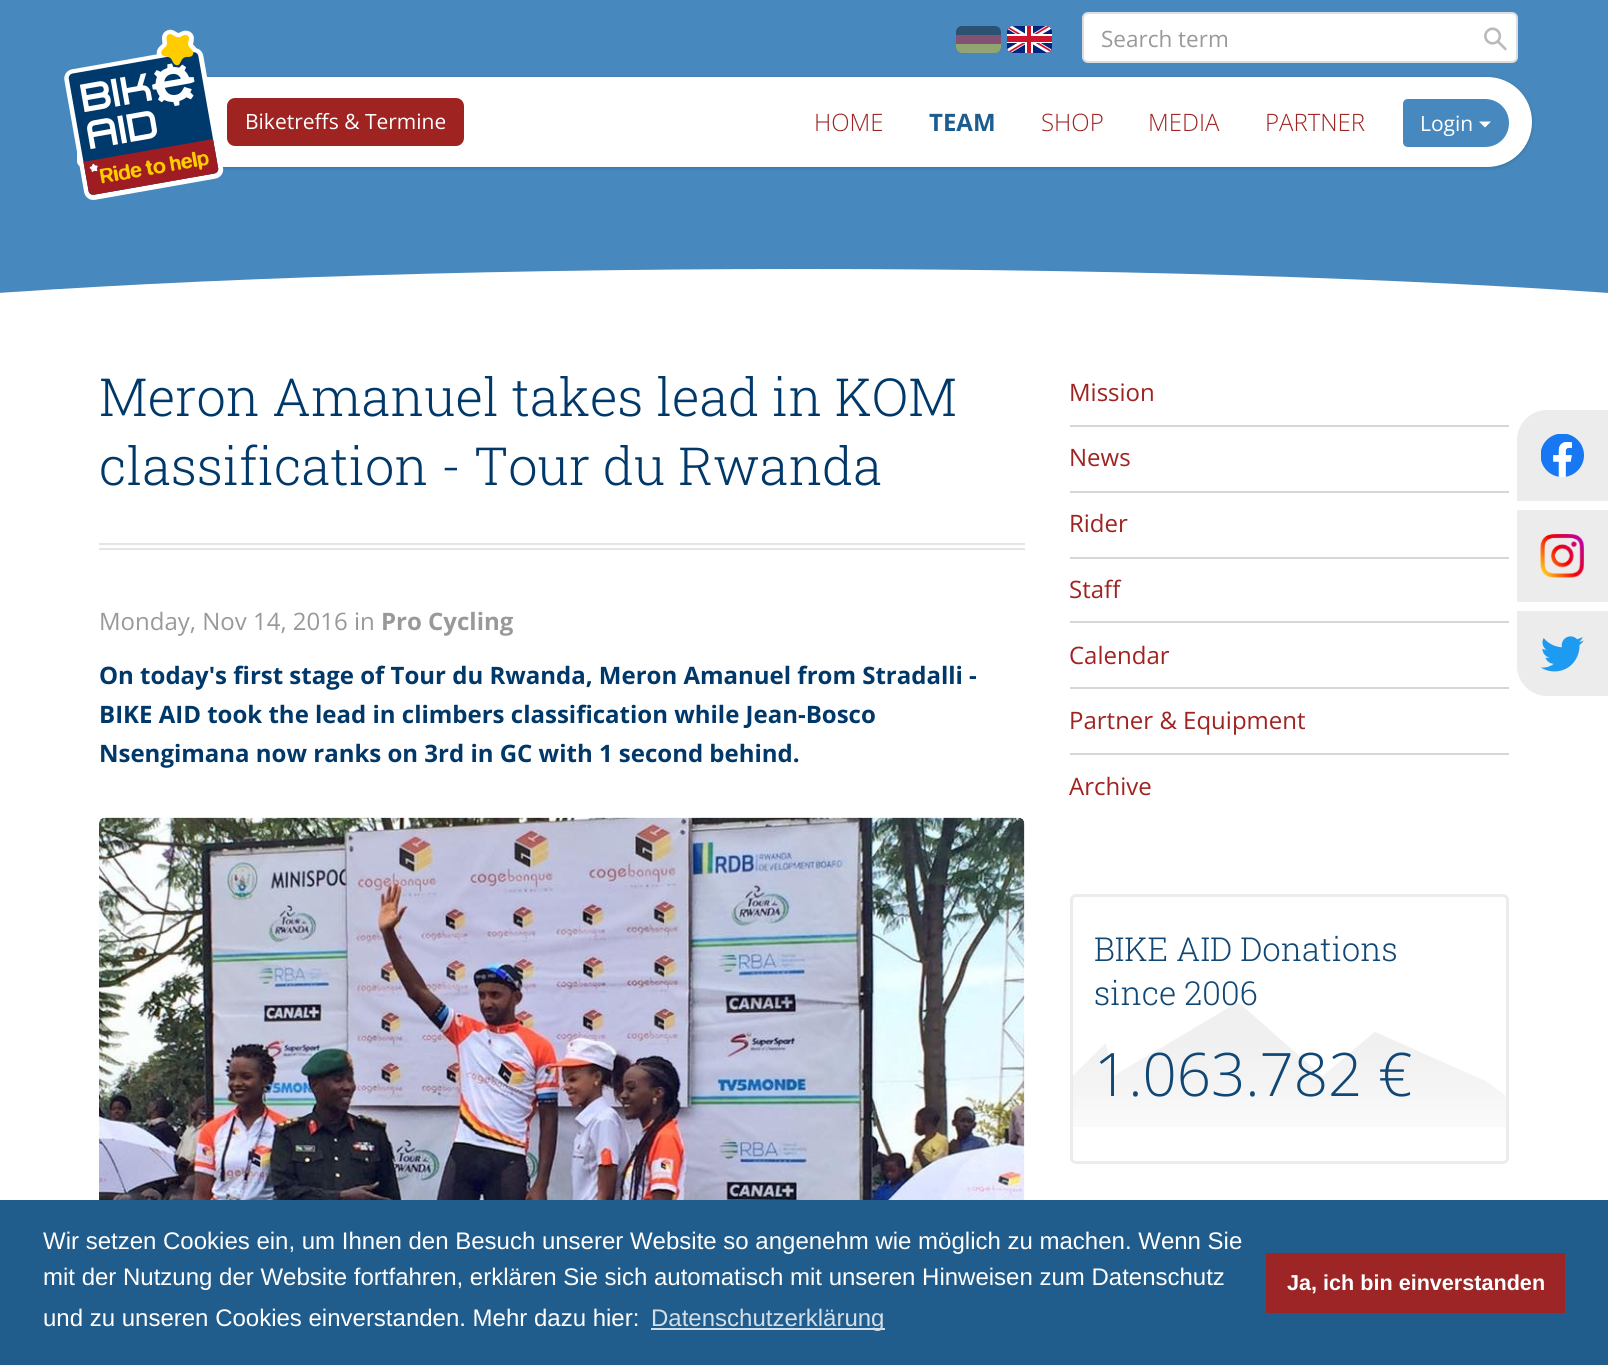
#include <cairo.h>
#include <math.h>
#include <stddef.h>


static void set_color(cairo_t *cr, unsigned color) {
    cairo_set_source_rgb(cr, (color >> 16) / 255.0, (color >> 8 & 255) / 255.0, (color & 255) / 255.0);
}

static void draw_text(cairo_t *cr, double x, double y, const char *s, const char *family, double size, int italic, int bold, unsigned color) {
    cairo_select_font_face(cr, family, italic ? CAIRO_FONT_SLANT_ITALIC : CAIRO_FONT_SLANT_NORMAL,
        bold ? CAIRO_FONT_WEIGHT_BOLD : CAIRO_FONT_WEIGHT_NORMAL);
    cairo_set_font_size(cr, size);
    set_color(cr, color);
    cairo_move_to(cr, x, y);
    cairo_show_text(cr, s);
}

static void fill_rect(cairo_t *cr, double x, double y, double w, double h, unsigned color) {
    set_color(cr, color);
    cairo_rectangle(cr, x, y, w, h);
    cairo_fill(cr);
}

static void rounded_rect(cairo_t *cr, double x, double y, double w, double h, double r) {
    cairo_new_sub_path(cr);
    cairo_arc(cr, x + w - r, y + h - r, r, 0, M_PI / 2);
    cairo_arc(cr, x + r, y + h - r, r, M_PI / 2, M_PI);
    cairo_arc(cr, x + r, y + r, r, M_PI, 1.5 * M_PI);
    cairo_arc(cr, x + w - r, y + r, r, 1.5 * M_PI, 2 * M_PI);
    cairo_close_path(cr);
}

static void draw_shadow(cairo_t *cr, double x, double y, double w, double h, double r, double blur, double alpha) {
    cairo_push_group_with_content(cr, CAIRO_CONTENT_ALPHA);
    cairo_set_operator(cr, CAIRO_OPERATOR_SOURCE);
    for (int i = 15; i >= -15 && fmin(w, h) + blur * i / 3 > 0; i -= 2) {
        double e = blur * i / 6;
        cairo_set_source_rgba(cr, 0, 0, 0, alpha * erfc((i - 1) / 8.5) / 2);
        rounded_rect(cr, x - e, y - e, w + 2 * e, h + 2 * e, fmax(0, fmin(r + e + blur * .6, fmin(w, h) / 2 + e)));
        cairo_fill(cr);
    }
    cairo_pattern_t *soft = cairo_pop_group(cr);
    cairo_mask(cr, soft);
    cairo_pattern_destroy(soft);
}

static void draw_image(cairo_t *cr, const char *path, double x, double y, double w, double h) {
    cairo_surface_t *image = cairo_image_surface_create_from_png(path);
    cairo_save(cr);
    cairo_set_source_surface(cr, image, x, y);
    cairo_rectangle(cr, x, y, w, h);
    cairo_fill(cr);
    cairo_restore(cr);
    cairo_surface_destroy(image);
}

int main(void) {
    cairo_surface_t *surface = cairo_image_surface_create(CAIRO_FORMAT_RGB24, 1608, 1365);
    cairo_t *cr = cairo_create(surface);
    cairo_font_options_t *options = cairo_font_options_create();
    cairo_font_options_set_hint_metrics(options, CAIRO_HINT_METRICS_OFF);
    cairo_font_options_set_hint_style(options, CAIRO_HINT_STYLE_NONE);
    cairo_set_font_options(cr, options);
    cairo_set_miter_limit(cr, 4);
    set_color(cr, 0xFFFFFF);
    cairo_paint(cr);
    fill_rect(cr, 0, 0, 1608, 293, 0x4789BE);
    set_color(cr, 0x000000);
    draw_shadow(cr, 77, 78, 1455, 90, 45, 2, 0.2);
    set_color(cr, 0xFFFFFF);
    cairo_new_path(cr);
    cairo_move_to(cr, 83, 77);
    cairo_line_to(cr, 1487, 77);
    cairo_curve_to(cr, 1512, 77, 1532, 97, 1532, 122);
    cairo_curve_to(cr, 1532, 147, 1512, 167, 1487, 167);
    cairo_line_to(cr, 83, 167);
    cairo_curve_to(cr, 79.5, 167, 77, 164.5, 77, 161);
    cairo_line_to(cr, 77, 83);
    cairo_curve_to(cr, 77, 79.5, 79.5, 77, 83, 77);
    cairo_close_path(cr);
    cairo_fill(cr);
    draw_image(cr, "assets/img1.png", 64, 29, 160, 171);
    set_color(cr, 0x2B5272);
    rounded_rect(cr, 956, 26, 45, 27, 6);
    cairo_fill(cr);
    draw_image(cr, "assets/img2.png", 1007, 26, 45, 27);
    set_color(cr, 0x835272);
    cairo_new_path(cr);
    cairo_move_to(cr, 956, 35);
    cairo_line_to(cr, 1001, 35);
    cairo_line_to(cr, 1001, 47);
    cairo_curve_to(cr, 1001, 50.5, 998.5, 53, 995, 53);
    cairo_line_to(cr, 962, 53);
    cairo_curve_to(cr, 958.5, 53, 956, 50.5, 956, 47);
    cairo_close_path(cr);
    cairo_fill(cr);
    set_color(cr, 0x91A572);
    cairo_new_path(cr);
    cairo_move_to(cr, 956, 44);
    cairo_line_to(cr, 1001, 44);
    cairo_line_to(cr, 1001, 47);
    cairo_curve_to(cr, 1001, 50.5, 998.5, 53, 995, 53);
    cairo_line_to(cr, 962, 53);
    cairo_curve_to(cr, 958.5, 53, 956, 50.5, 956, 47);
    cairo_close_path(cr);
    cairo_fill(cr);
    set_color(cr, 0xFFFFFF);
    rounded_rect(cr, 1083, 13, 434, 49, 5);
    cairo_fill_preserve(cr);
    set_color(cr, 0xDDDDDD);
    cairo_stroke(cr);
    draw_text(cr, 1101, 47, "Search term", "Open Sans", 22.5, 0, 0, 0x999999);
    draw_image(cr, "assets/img3.png", 1484, 27, 23, 24);
    set_color(cr, 0x9F2321);
    rounded_rect(cr, 227, 98, 237, 48, 8);
    cairo_fill(cr);
    draw_text(cr, 245, 129, "Biketreffs & Termine", "Open Sans", 21, 0, 0, 0xFFFFFF);
    draw_text(cr, 814, 131, "HOME", "Open Sans Light", 24, 0, 0, 0x9F2321);
    draw_text(cr, 929, 131, "TEAM", "Open Sans", 24, 0, 1, 0x1D5C8E);
    draw_text(cr, 1041, 131, "SHOP", "Open Sans Light", 24, 0, 0, 0x9F2321);
    draw_text(cr, 1148, 131, "MEDIA", "Open Sans Light", 24, 0, 0, 0x9F2321);
    draw_text(cr, 1265, 131, "PARTNER", "Open Sans Light", 24, 0, 0, 0x9F2321);
    set_color(cr, 0x4789BE);
    cairo_new_path(cr);
    cairo_move_to(cr, 1408, 99);
    cairo_line_to(cr, 1485, 99);
    cairo_curve_to(cr, 1498.5, 99, 1509, 109.5, 1509, 123);
    cairo_curve_to(cr, 1509, 136.5, 1498.5, 147, 1485, 147);
    cairo_line_to(cr, 1408, 147);
    cairo_curve_to(cr, 1405, 147, 1403, 145, 1403, 142);
    cairo_line_to(cr, 1403, 104);
    cairo_curve_to(cr, 1403, 101, 1405, 99, 1408, 99);
    cairo_close_path(cr);
    cairo_fill(cr);
    draw_text(cr, 1420, 131, "Login", "Open Sans", 21, 0, 0, 0xFFFFFF);
    cairo_new_path(cr);
    cairo_move_to(cr, 1479, 121.5);
    cairo_line_to(cr, 1491, 121.5);
    cairo_line_to(cr, 1485, 127.5);
    cairo_close_path(cr);
    cairo_fill(cr);
    cairo_new_path(cr);
    cairo_move_to(cr, 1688, 299);
    cairo_curve_to(cr, 1472, 281, 1156, 269, 803, 269);
    cairo_curve_to(cr, 451, 269, 135, 281, -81, 299);
    cairo_line_to(cr, -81, 361);
    cairo_line_to(cr, 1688, 361);
    cairo_close_path(cr);
    cairo_fill(cr);
    fill_rect(cr, 99, 543, 926, 2, 0xE5E5E5);
    fill_rect(cr, 99, 548, 926, 2, 0xE5E5E5);
    draw_text(cr, 99, 416, "Meron Amanuel takes lead in KOM", "Roboto Slab Light", 52.5, 0, 0, 0x00386A);
    draw_text(cr, 99, 485, "classification - Tour du Rwanda", "Roboto Slab Light", 52.5, 0, 0, 0x00386A);
    draw_text(cr, 99, 630, "Monday, Nov 14, 2016 in", "Open Sans", 24, 0, 0, 0x999999);
    draw_text(cr, 381, 630, "Pro Cycling", "Open Sans", 24, 0, 1, 0x999999);
    draw_text(cr, 99, 684, "On today's first stage of Tour du Rwanda, Meron Amanuel from Stradalli -", "Open Sans", 24, 0, 1, 0x00386A);
    draw_text(cr, 99, 723, "BIKE AID took the lead in climbers classification while Jean-Bosco", "Open Sans", 24, 0, 1, 0x00386A);
    draw_text(cr, 99, 762, "Nsengimana now ranks on 3rd in GC with 1 second behind.", "Open Sans", 24, 0, 1, 0x00386A);
    draw_image(cr, "assets/img4.png", 99, 817, 926, 383);
    fill_rect(cr, 1070, 425, 439, 2, 0xD6D6D6);
    draw_text(cr, 1069, 401, "Mission", "Open Sans", 24, 0, 0, 0x9F2321);
    fill_rect(cr, 1070, 491, 439, 2, 0xD6D6D6);
    draw_text(cr, 1069, 466, "News", "Open Sans", 24, 0, 0, 0x9F2321);
    fill_rect(cr, 1070, 557, 439, 2, 0xD6D6D6);
    draw_text(cr, 1069, 532, "Rider", "Open Sans", 24, 0, 0, 0x9F2321);
    fill_rect(cr, 1070, 621, 439, 2, 0xD6D6D6);
    draw_text(cr, 1069, 598, "Staff", "Open Sans", 24, 0, 0, 0x9F2321);
    fill_rect(cr, 1070, 687, 439, 2, 0xD6D6D6);
    draw_text(cr, 1069, 664, "Calendar", "Open Sans", 24, 0, 0, 0x9F2321);
    fill_rect(cr, 1070, 753, 439, 2, 0xD6D6D6);
    draw_text(cr, 1069, 729, "Partner & Equipment", "Open Sans", 24, 0, 0, 0x9F2321);
    draw_text(cr, 1069, 795, "Archive", "Open Sans", 24, 0, 0, 0x9F2321);
    rounded_rect(cr, 1071.5, 895.5, 436, 267, 4.5);
    set_color(cr, 0xECECEC);
    cairo_set_line_width(cr, 3);
    cairo_stroke(cr);
    draw_image(cr, "assets/img5.png", 1072, 1002, 434, 125);
    draw_text(cr, 1094, 961, "BIKE AID Donations", "Roboto Slab Light", 33, 0, 0, 0x104774);
    draw_text(cr, 1094, 1005, "since 2006", "Roboto Slab Light", 33, 0, 0, 0x104774);
    draw_text(cr, 1094, 1096, "1.063.782 €", "Open Sans Light", 60, 0, 0, 0x104774);
    set_color(cr, 0xECECEC);
    cairo_new_path(cr);
    cairo_move_to(cr, 1547, 410);
    cairo_line_to(cr, 1608, 410);
    cairo_line_to(cr, 1608, 501);
    cairo_line_to(cr, 1517, 501);
    cairo_line_to(cr, 1517, 440);
    cairo_curve_to(cr, 1517, 423.5, 1530.5, 410, 1547, 410);
    cairo_close_path(cr);
    cairo_fill(cr);
    draw_image(cr, "assets/img6.png", 1541, 434, 43, 43);
    fill_rect(cr, 1517, 510, 91, 92, 0xECECEC);
    draw_image(cr, "assets/img7.png", 1540, 534, 44, 44);
    cairo_new_path(cr);
    cairo_move_to(cr, 1517, 611);
    cairo_line_to(cr, 1608, 611);
    cairo_line_to(cr, 1608, 696);
    cairo_line_to(cr, 1547, 696);
    cairo_curve_to(cr, 1530.5, 696, 1517, 682.5, 1517, 666);
    cairo_close_path(cr);
    cairo_fill(cr);
    draw_image(cr, "assets/img8.png", 1541, 636, 43, 36);
    fill_rect(cr, 0, 1200, 1608, 165, 0x215D8C);
    draw_text(cr, 43, 1249, "Wir setzen Cookies ein, um Ihnen den Besuch unserer Website so angenehm wie möglich zu machen. Wenn Sie", "Liberation Sans", 24, 0, 0, 0xFFFFFF);
    draw_text(cr, 43, 1285, "mit der Nutzung der Website fortfahren, erklären Sie sich automatisch mit unseren Hinweisen zum Datenschutz", "Liberation Sans", 24, 0, 0, 0xFFFFFF);
    draw_text(cr, 43, 1326, "und zu unseren Cookies einverstanden. Mehr dazu hier:", "Liberation Sans", 24, 0, 0, 0xFFFFFF);
    fill_rect(cr, 651, 1328, 234, 2, 0xD3DFE8);
    draw_text(cr, 651, 1326, "Datenschutzerklärung", "Liberation Sans", 24, 0, 0, 0xD3DFE8);
    fill_rect(cr, 1266, 1253, 299, 60, 0x9D2526);
    draw_text(cr, 1287, 1290, "Ja, ich bin einverstanden", "Liberation Sans", 21.6, 0, 1, 0xFFFFFF);
    cairo_surface_write_to_png(surface, "output.png");
    cairo_font_options_destroy(options);
    cairo_destroy(cr);
    cairo_surface_destroy(surface);
    return 0;
}
